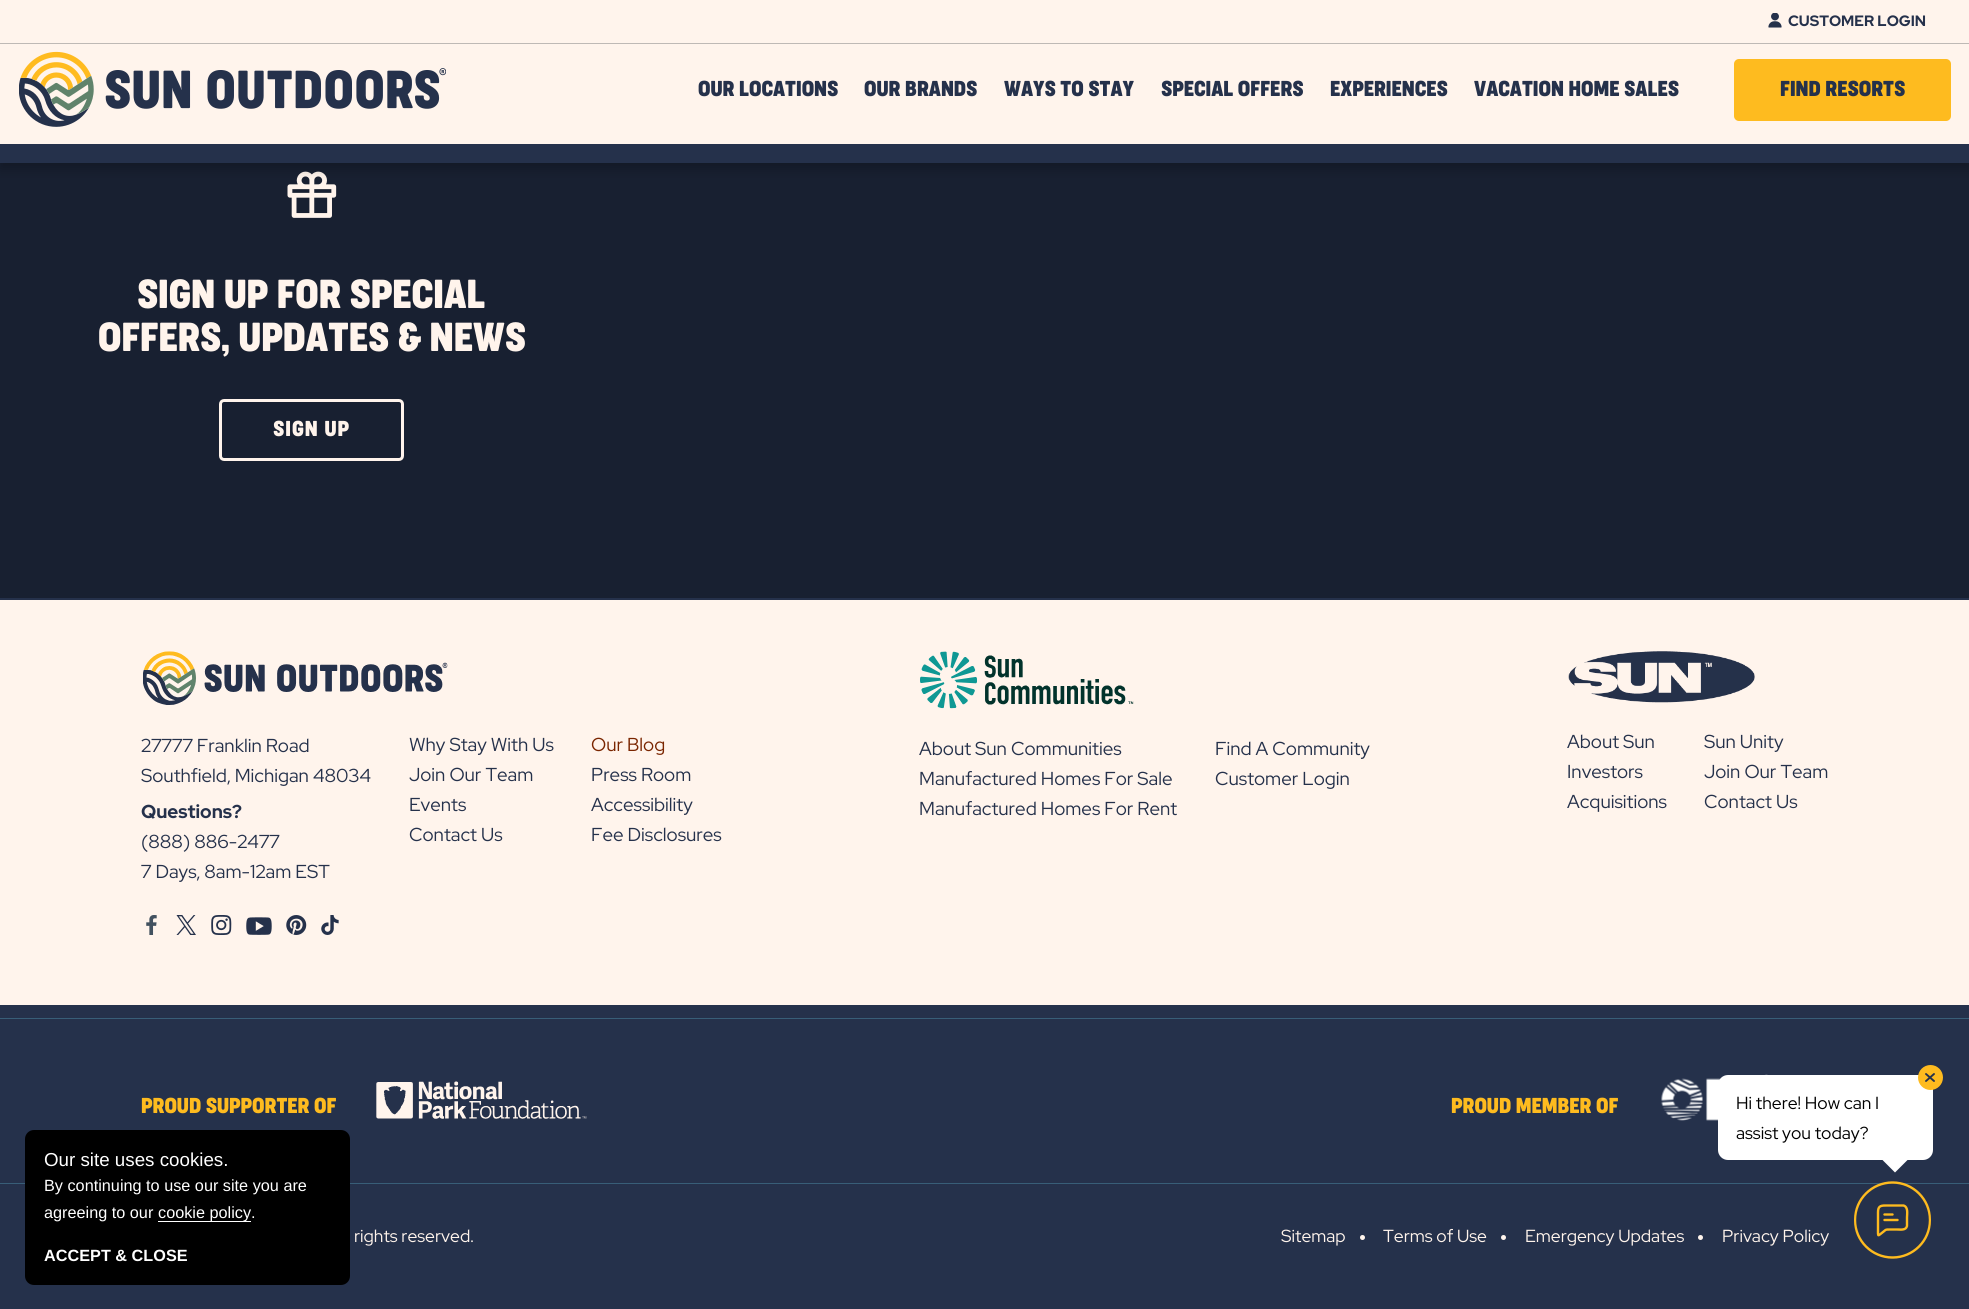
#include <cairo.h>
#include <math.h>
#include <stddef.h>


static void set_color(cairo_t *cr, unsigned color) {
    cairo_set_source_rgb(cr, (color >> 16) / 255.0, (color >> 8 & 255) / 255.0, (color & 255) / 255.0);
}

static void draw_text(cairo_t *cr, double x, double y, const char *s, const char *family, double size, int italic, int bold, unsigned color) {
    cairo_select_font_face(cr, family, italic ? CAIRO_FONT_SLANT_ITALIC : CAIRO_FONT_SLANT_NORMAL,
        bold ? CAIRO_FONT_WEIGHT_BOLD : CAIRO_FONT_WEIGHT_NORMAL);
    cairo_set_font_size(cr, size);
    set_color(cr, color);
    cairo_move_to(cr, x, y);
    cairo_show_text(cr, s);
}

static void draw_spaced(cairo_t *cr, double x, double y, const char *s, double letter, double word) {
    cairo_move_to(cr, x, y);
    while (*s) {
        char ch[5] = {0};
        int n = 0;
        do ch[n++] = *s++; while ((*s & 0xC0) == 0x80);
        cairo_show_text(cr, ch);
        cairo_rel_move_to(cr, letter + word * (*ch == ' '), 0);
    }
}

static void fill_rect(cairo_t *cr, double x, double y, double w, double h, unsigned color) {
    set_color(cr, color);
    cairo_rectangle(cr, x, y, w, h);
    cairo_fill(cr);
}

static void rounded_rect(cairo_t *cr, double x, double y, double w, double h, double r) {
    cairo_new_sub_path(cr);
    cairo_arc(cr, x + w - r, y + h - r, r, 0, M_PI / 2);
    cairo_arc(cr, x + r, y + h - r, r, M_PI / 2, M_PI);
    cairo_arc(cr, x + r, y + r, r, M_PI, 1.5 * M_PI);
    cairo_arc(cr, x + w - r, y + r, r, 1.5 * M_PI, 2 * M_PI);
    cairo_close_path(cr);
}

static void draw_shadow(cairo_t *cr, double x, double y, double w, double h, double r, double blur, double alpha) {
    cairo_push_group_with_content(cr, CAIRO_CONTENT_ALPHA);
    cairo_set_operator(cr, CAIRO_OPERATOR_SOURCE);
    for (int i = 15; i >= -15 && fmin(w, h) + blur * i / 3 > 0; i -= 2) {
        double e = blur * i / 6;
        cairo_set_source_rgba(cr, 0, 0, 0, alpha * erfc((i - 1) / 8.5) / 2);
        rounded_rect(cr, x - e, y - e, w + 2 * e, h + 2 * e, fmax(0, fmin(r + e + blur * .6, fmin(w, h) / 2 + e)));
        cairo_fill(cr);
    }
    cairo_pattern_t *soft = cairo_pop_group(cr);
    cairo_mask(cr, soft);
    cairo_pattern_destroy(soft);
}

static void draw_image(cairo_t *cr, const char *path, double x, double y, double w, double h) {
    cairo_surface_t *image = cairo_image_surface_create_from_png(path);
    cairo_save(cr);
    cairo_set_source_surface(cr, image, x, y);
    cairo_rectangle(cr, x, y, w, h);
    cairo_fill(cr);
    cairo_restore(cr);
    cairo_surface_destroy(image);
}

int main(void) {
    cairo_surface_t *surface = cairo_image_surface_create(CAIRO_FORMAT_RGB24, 1969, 1309);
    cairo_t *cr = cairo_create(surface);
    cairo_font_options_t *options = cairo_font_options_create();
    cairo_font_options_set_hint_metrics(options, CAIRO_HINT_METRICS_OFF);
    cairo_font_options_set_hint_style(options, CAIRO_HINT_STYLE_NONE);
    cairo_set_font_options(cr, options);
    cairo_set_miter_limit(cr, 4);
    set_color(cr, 0x25314B);
    cairo_paint(cr);
    fill_rect(cr, 0, 163, 1969, 435, 0x182031);
    draw_image(cr, "assets/img3.png", 287, 171, 50, 47);
    set_color(cr, 0x000000);
    draw_shadow(cr, 0, 6, 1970, 163, 0, 6, 0.24);
    fill_rect(cr, 0, 0, 1969, 144, 0xFFF4EC);
    fill_rect(cr, 0, 43, 1969, 1, 0xBEB9B5);
    draw_image(cr, "assets/img1.png", 1768, 13, 14, 15);
    draw_text(cr, 1788, 26, "CUSTOMER LOGIN", "Red Hat Display", 15, 0, 1, 0x25314B);
    fill_rect(cr, 0, 144, 1969, 19, 0x25314B);
    draw_image(cr, "assets/img2.png", 19, 51, 427, 76);
    draw_text(cr, 698, 96, "OUR LOCATIONS", "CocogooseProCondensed", 20, 0, 1, 0x25314B);
    draw_text(cr, 864, 96, "OUR BRANDS", "CocogooseProCondensed", 20, 0, 1, 0x25314B);
    draw_text(cr, 1004, 96, "WAYS TO STAY", "CocogooseProCondensed", 20, 0, 1, 0x25314B);
    draw_text(cr, 1161, 96, "SPECIAL OFFERS", "CocogooseProCondensed", 20, 0, 1, 0x25314B);
    draw_text(cr, 1330, 96, "EXPERIENCES", "CocogooseProCondensed", 20, 0, 1, 0x25314B);
    draw_text(cr, 1474, 96, "VACATION HOME SALES", "CocogooseProCondensed", 20, 0, 1, 0x25314B);
    set_color(cr, 0xFEBB1F);
    rounded_rect(cr, 1734, 59, 217, 62, 5);
    cairo_fill(cr);
    draw_text(cr, 1780, 96, "FIND RESORTS", "CocogooseProCondensed", 20, 0, 1, 0x25314B);
    draw_text(cr, 137, 308, "SIGN UP FOR SPECIAL", "CocogooseProCondensed", 37.5, 0, 1, 0xFFF4EC);
    draw_text(cr, 98, 351, "OFFERS, UPDATES & NEWS", "CocogooseProCondensed", 37.5, 0, 1, 0xFFF4EC);
    rounded_rect(cr, 220.5, 400.5, 182, 59, 3.5);
    cairo_set_line_width(cr, 3);
    cairo_stroke(cr);
    cairo_set_font_size(cr, 20);
    draw_spaced(cr, 273, 436, "SIGN UP", 1, 0);
    fill_rect(cr, 0, 600, 1969, 405, 0xFFF4EC);
    draw_image(cr, "assets/img4.png", 143, 651, 305, 54);
    draw_text(cr, 141, 752, "27777 Franklin Road", "Red Hat Display", 18.75, 0, 0, 0x25314B);
    draw_text(cr, 141, 782, "Southfield, Michigan 48034", "Red Hat Display", 18.75, 0, 0, 0x25314B);
    draw_text(cr, 141, 818, "Questions?", "Red Hat Display", 18.75, 0, 1, 0x25314B);
    draw_text(cr, 141, 848, "(888) 886-2477", "Red Hat Display", 18.75, 0, 0, 0x25314B);
    draw_text(cr, 141, 878, "7 Days, 8am-12am EST", "Red Hat Display", 18.75, 0, 0, 0x25314B);
    draw_text(cr, 409, 751, "Why Stay With Us", "Red Hat Display", 18.75, 0, 0, 0x25314B);
    draw_text(cr, 591, 751, "Our Blog", "Red Hat Display", 18.75, 0, 0, 0x7A2500);
    draw_text(cr, 409, 781, "Join Our Team", "Red Hat Display", 18.75, 0, 0, 0x25314B);
    draw_text(cr, 591, 781, "Press Room", "Red Hat Display", 18.75, 0, 0, 0x25314B);
    draw_text(cr, 409, 811, "Events", "Red Hat Display", 18.75, 0, 0, 0x25314B);
    draw_text(cr, 591, 811, "Accessibility", "Red Hat Display", 18.75, 0, 0, 0x25314B);
    draw_text(cr, 409, 841, "Contact Us", "Red Hat Display", 18.75, 0, 0, 0x25314B);
    draw_text(cr, 591, 841, "Fee Disclosures", "Red Hat Display", 18.75, 0, 0, 0x25314B);
    draw_image(cr, "assets/img5.png", 920, 651, 214, 58);
    draw_text(cr, 919, 755, "About Sun Communities", "Red Hat Display", 18.75, 0, 0, 0x25314B);
    draw_text(cr, 1215, 755, "Find A Community", "Red Hat Display", 18.75, 0, 0, 0x25314B);
    draw_text(cr, 919, 785, "Manufactured Homes For Sale", "Red Hat Display", 18.75, 0, 0, 0x25314B);
    draw_text(cr, 1215, 785, "Customer Login", "Red Hat Display", 18.75, 0, 0, 0x25314B);
    draw_text(cr, 919, 815, "Manufactured Homes For Rent", "Red Hat Display", 18.75, 0, 0, 0x25314B);
    draw_image(cr, "assets/img6.png", 1568, 651, 187, 52);
    draw_text(cr, 1567, 748, "About Sun", "Red Hat Display", 18.75, 0, 0, 0x25314B);
    draw_text(cr, 1704, 748, "Sun Unity", "Red Hat Display", 18.75, 0, 0, 0x25314B);
    draw_text(cr, 1567, 778, "Investors", "Red Hat Display", 18.75, 0, 0, 0x25314B);
    draw_text(cr, 1704, 778, "Join Our Team", "Red Hat Display", 18.75, 0, 0, 0x25314B);
    draw_text(cr, 1567, 808, "Acquisitions", "Red Hat Display", 18.75, 0, 0, 0x25314B);
    draw_text(cr, 1704, 808, "Contact Us", "Red Hat Display", 18.75, 0, 0, 0x25314B);
    draw_image(cr, "assets/img7.png", 146, 915, 11, 20);
    draw_image(cr, "assets/img8.png", 176, 915, 20, 20);
    draw_image(cr, "assets/img9.png", 211, 915, 21, 20);
    draw_image(cr, "assets/img10.png", 246, 917, 26, 18);
    draw_image(cr, "assets/img11.png", 286, 915, 21, 20);
    draw_image(cr, "assets/img12.png", 321, 915, 18, 20);
    fill_rect(cr, 0, 1018, 1969, 1, 0x385E78);
    fill_rect(cr, 0, 1183, 1969, 1, 0x385E78);
    draw_text(cr, 141, 1113, "PROUD SUPPORTER OF", "CocogooseProCondensed", 20, 0, 1, 0xFEBB1F);
    draw_image(cr, "assets/img13.png", 376, 1081, 211, 38);
    draw_text(cr, 1451, 1113, "PROUD MEMBER OF", "CocogooseProCondensed", 20, 0, 1, 0xFEBB1F);
    draw_image(cr, "assets/img14.png", 1661, 1074, 107, 47);
    draw_text(cr, 354, 1242, "rights reserved.", "Red Hat Display", 17.5, 0, 0, 0xFFF4EC);
    draw_text(cr, 1281, 1242, "Sitemap", "Red Hat Display", 17.5, 0, 0, 0xFFF4EC);
    cairo_new_path(cr);
    cairo_arc(cr, 1362.5, 1237.5, 2.5, 0, 2 * M_PI);
    cairo_fill(cr);
    draw_text(cr, 1383, 1242, "Terms of Use", "Red Hat Display", 17.5, 0, 0, 0xFFF4EC);
    cairo_new_path(cr);
    cairo_arc(cr, 1503.5, 1237.5, 2.5, 0, 2 * M_PI);
    cairo_fill(cr);
    draw_text(cr, 1525, 1242, "Emergency Updates", "Red Hat Display", 17.5, 0, 0, 0xFFF4EC);
    cairo_new_path(cr);
    cairo_arc(cr, 1700.5, 1237.5, 2.5, 0, 2 * M_PI);
    cairo_fill(cr);
    draw_text(cr, 1722, 1242, "Privacy Policy", "Red Hat Display", 17.5, 0, 0, 0xFFF4EC);
    set_color(cr, 0xFFFFFF);
    rounded_rect(cr, 1718, 1075, 215, 85, 10);
    cairo_fill(cr);
    set_color(cr, 0xFEBB1F);
    cairo_arc(cr, 1930.5, 1077.5, 12.5, 0, 2 * M_PI);
    cairo_fill(cr);
    cairo_new_path(cr);
    cairo_move_to(cr, 1934, 1074);
    cairo_line_to(cr, 1926, 1081);
    cairo_move_to(cr, 1926, 1074);
    cairo_line_to(cr, 1934, 1081);
    set_color(cr, 0x25314B);
    cairo_set_line_width(cr, 1.9);
    cairo_set_line_cap(cr, CAIRO_LINE_CAP_ROUND);
    cairo_set_line_join(cr, CAIRO_LINE_JOIN_ROUND);
    cairo_stroke(cr);
    draw_text(cr, 1736, 1109, "Hi there! How can I", "Red Hat Display", 17.5, 0, 0, 0x000000);
    draw_text(cr, 1736, 1139, "assist you today?", "Red Hat Display", 17.5, 0, 0, 0x000000);
    set_color(cr, 0xFFFFFF);
    cairo_new_path(cr);
    cairo_move_to(cr, 1882.5, 1160);
    cairo_line_to(cr, 1907.5, 1160);
    cairo_line_to(cr, 1895, 1172.5);
    cairo_close_path(cr);
    cairo_fill(cr);
    set_color(cr, 0x25314B);
    cairo_arc(cr, 1892.5, 1220, 37.5, 0, 2 * M_PI);
    cairo_fill(cr);
    cairo_save(cr);
    rounded_rect(cr, 1854, 1181, 77, 78, 38.5);
    cairo_clip(cr);
    cairo_arc(cr, 1892.5, 1220, 37.5, 0, 2 * M_PI);
    set_color(cr, 0xFEBB1F);
    cairo_set_line_width(cr, 2.4);
    cairo_set_line_cap(cr, CAIRO_LINE_CAP_BUTT);
    cairo_set_line_join(cr, CAIRO_LINE_JOIN_MITER);
    cairo_stroke(cr);
    cairo_restore(cr);
    cairo_new_path(cr);
    cairo_move_to(cr, 1884.5, 1214.5);
    cairo_line_to(cr, 1892.5, 1214.5);
    cairo_move_to(cr, 1884.5, 1220);
    cairo_line_to(cr, 1897.5, 1220);
    cairo_move_to(cr, 1889, 1229.5);
    cairo_line_to(cr, 1897.5, 1229.5);
    cairo_curve_to(cr, 1900.5, 1229.5, 1906, 1230.5, 1907, 1226);
    cairo_line_to(cr, 1907, 1217.5);
    cairo_curve_to(cr, 1907, 1214, 1908.5, 1207, 1903.5, 1205.5);
    cairo_line_to(cr, 1885.5, 1205.5);
    cairo_curve_to(cr, 1880, 1205.5, 1878, 1206.5, 1878, 1212.5);
    cairo_line_to(cr, 1878, 1233.5);
    cairo_curve_to(cr, 1878, 1236.5, 1879, 1235, 1880.5, 1234);
    cairo_line_to(cr, 1885.5, 1230);
    cairo_curve_to(cr, 1886.5, 1229.5, 1887.5, 1229.5, 1889, 1229.5);
    cairo_close_path(cr);
    set_color(cr, 0xFEBB1F);
    cairo_set_line_width(cr, 2.4);
    cairo_stroke(cr);
    set_color(cr, 0x000000);
    rounded_rect(cr, 25, 1130, 325, 155, 9);
    cairo_fill(cr);
    draw_text(cr, 44, 1166, "Our site uses cookies.", "Liberation Sans", 18.75, 0, 0, 0xFFFFFF);
    draw_text(cr, 44, 1191, "By continuing to use our site you are", "Liberation Sans", 16.25, 0, 0, 0xFFFFFF);
    draw_text(cr, 44, 1218, "agreeing to our", "Liberation Sans", 16.25, 0, 0, 0xFFFFFF);
    fill_rect(cr, 158, 1221, 93, 1, 0xFFFFFF);
    draw_text(cr, 158, 1218, "cookie policy.", "Liberation Sans", 16.25, 0, 0, 0xFFFFFF);
    draw_text(cr, 44, 1261, "ACCEPT & CLOSE", "Liberation Sans", 16.25, 0, 1, 0xFFFFFF);
    cairo_surface_write_to_png(surface, "output.png");
    cairo_font_options_destroy(options);
    cairo_destroy(cr);
    cairo_surface_destroy(surface);
    return 0;
}
